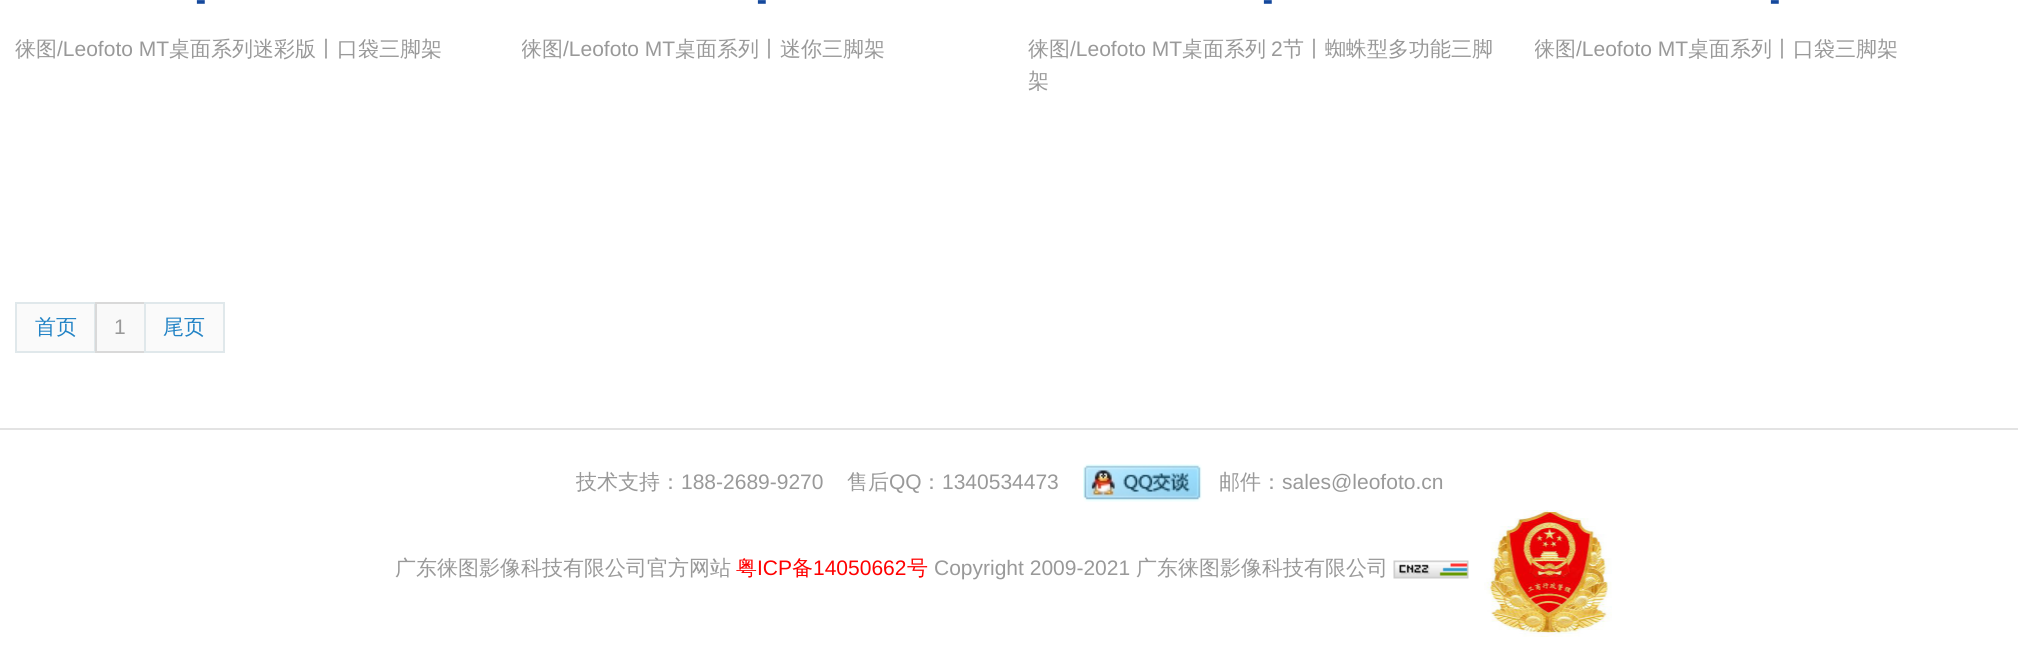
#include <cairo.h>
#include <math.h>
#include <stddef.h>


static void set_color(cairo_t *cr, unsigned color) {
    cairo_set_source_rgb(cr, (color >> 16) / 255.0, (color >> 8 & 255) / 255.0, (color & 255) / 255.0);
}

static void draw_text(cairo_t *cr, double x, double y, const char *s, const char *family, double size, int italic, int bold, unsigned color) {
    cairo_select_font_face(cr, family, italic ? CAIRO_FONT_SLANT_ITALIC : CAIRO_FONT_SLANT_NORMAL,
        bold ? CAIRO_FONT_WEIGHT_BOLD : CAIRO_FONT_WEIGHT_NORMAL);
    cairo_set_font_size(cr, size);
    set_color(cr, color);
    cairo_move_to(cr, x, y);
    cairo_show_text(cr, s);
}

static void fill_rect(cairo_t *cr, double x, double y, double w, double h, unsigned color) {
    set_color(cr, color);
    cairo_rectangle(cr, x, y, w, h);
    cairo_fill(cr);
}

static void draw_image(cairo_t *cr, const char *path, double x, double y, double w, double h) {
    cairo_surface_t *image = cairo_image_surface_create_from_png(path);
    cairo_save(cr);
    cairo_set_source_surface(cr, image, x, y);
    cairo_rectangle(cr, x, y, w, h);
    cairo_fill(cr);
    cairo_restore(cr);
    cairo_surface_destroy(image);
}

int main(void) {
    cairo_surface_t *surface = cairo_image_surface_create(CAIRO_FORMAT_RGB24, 2018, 667);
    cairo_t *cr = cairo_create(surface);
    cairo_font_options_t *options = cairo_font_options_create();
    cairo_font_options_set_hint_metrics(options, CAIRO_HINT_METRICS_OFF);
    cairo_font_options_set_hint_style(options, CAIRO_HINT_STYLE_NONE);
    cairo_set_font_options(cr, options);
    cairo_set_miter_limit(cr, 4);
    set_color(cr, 0xFFFFFF);
    cairo_paint(cr);
    draw_text(cr, 196, 10, "-", "Open Sans", 30, 0, 1, 0x15499D);
    draw_text(cr, 15, 56, "徕图", "WenQuanYi Zen Hei Medium", 21, 0, 0, 0x999999);
    draw_text(cr, 57, 56, "/Leofoto MT", "Liberation Sans", 21, 0, 0, 0x999999);
    draw_text(cr, 169, 56, "桌面系列迷彩版丨口袋三脚架", "WenQuanYi Zen Hei Medium", 21, 0, 0, 0x999999);
    draw_text(cr, 757, 10, "-", "Open Sans", 30, 0, 1, 0x15499D);
    cairo_save(cr);
    cairo_rectangle(cr, 522, 35, 470, 120);
    cairo_clip(cr);
    draw_text(cr, 521, 56, "徕图", "WenQuanYi Zen Hei Medium", 21, 0, 0, 0x999999);
    cairo_restore(cr);
    draw_text(cr, 563, 56, "/Leofoto MT", "Liberation Sans", 21, 0, 0, 0x999999);
    draw_text(cr, 675, 56, "桌面系列丨迷你三脚架", "WenQuanYi Zen Hei Medium", 21, 0, 0, 0x999999);
    draw_text(cr, 1263, 10, "-", "Open Sans", 30, 0, 1, 0x15499D);
    draw_text(cr, 1028, 56, "徕图", "WenQuanYi Zen Hei Medium", 21, 0, 0, 0x999999);
    draw_text(cr, 1070, 56, "/Leofoto MT", "Liberation Sans", 21, 0, 0, 0x999999);
    draw_text(cr, 1182, 56, "桌面系列", "WenQuanYi Zen Hei Medium", 21, 0, 0, 0x999999);
    draw_text(cr, 1271, 56, "2", "Liberation Sans", 21, 0, 0, 0x999999);
    draw_text(cr, 1283, 56, "节丨蜘蛛型多功能三脚", "WenQuanYi Zen Hei Medium", 21, 0, 0, 0x999999);
    draw_text(cr, 1028, 88, "架", "WenQuanYi Zen Hei Medium", 21, 0, 0, 0x999999);
    draw_text(cr, 1770, 10, "-", "Open Sans", 30, 0, 1, 0x15499D);
    cairo_save(cr);
    cairo_rectangle(cr, 1535, 35, 469, 120);
    cairo_clip(cr);
    draw_text(cr, 1534, 56, "徕图", "WenQuanYi Zen Hei Medium", 21, 0, 0, 0x999999);
    cairo_restore(cr);
    draw_text(cr, 1576, 56, "/Leofoto MT", "Liberation Sans", 21, 0, 0, 0x999999);
    draw_text(cr, 1688, 56, "桌面系列丨口袋三脚架", "WenQuanYi Zen Hei Medium", 21, 0, 0, 0x999999);
    set_color(cr, 0xFAFAFA);
    cairo_rectangle(cr, 16, 303, 79, 49);
    cairo_fill_preserve(cr);
    set_color(cr, 0xE0E8EB);
    cairo_stroke(cr);
    draw_text(cr, 35, 334, "首页", "WenQuanYi Zen Hei Medium", 21, 0, 0, 0x2283C5);
    set_color(cr, 0xF9F9F9);
    cairo_rectangle(cr, 96, 303, 49, 49);
    cairo_fill_preserve(cr);
    set_color(cr, 0xD9D9D9);
    cairo_stroke(cr);
    draw_text(cr, 114, 334, "1", "Liberation Sans", 21, 0, 0, 0x999999);
    set_color(cr, 0xFAFAFA);
    cairo_rectangle(cr, 145, 303, 79, 49);
    cairo_fill_preserve(cr);
    set_color(cr, 0xE0E8EB);
    cairo_stroke(cr);
    draw_text(cr, 163, 334, "尾页", "WenQuanYi Zen Hei Medium", 21, 0, 0, 0x2283C5);
    fill_rect(cr, 0, 428, 2018, 2, 0xE3E3E3);
    draw_text(cr, 576, 489, "技术支持：", "WenQuanYi Zen Hei Medium", 21, 0, 0, 0x999999);
    draw_text(cr, 681, 489, "188-2689-9270", "Liberation Sans", 21, 0, 0, 0x999999);
    draw_text(cr, 847, 489, "售后", "WenQuanYi Zen Hei Medium", 21, 0, 0, 0x999999);
    draw_text(cr, 889, 489, "QQ", "Liberation Sans", 21, 0, 0, 0x999999);
    draw_text(cr, 921, 489, "：", "WenQuanYi Zen Hei Medium", 21, 0, 0, 0x999999);
    draw_text(cr, 942, 489, "1340534473", "Liberation Sans", 21, 0, 0, 0x999999);
    draw_image(cr, "assets/img1.png", 1083, 464, 119, 38);
    draw_text(cr, 1219, 489, "邮件：", "WenQuanYi Zen Hei Medium", 21, 0, 0, 0x999999);
    draw_text(cr, 1282, 489, "sales@leofoto.cn", "Liberation Sans", 21, 0, 0, 0x999999);
    draw_text(cr, 395, 575, "广东徕图影像科技有限公司官方网站", "WenQuanYi Zen Hei Medium", 21, 0, 0, 0x999999);
    draw_text(cr, 736, 575, "粤", "WenQuanYi Zen Hei Medium", 21, 0, 0, 0xFF0000);
    draw_text(cr, 757, 575, "ICP", "Liberation Sans", 21, 0, 0, 0xFF0000);
    draw_text(cr, 792, 575, "备", "WenQuanYi Zen Hei Medium", 21, 0, 0, 0xFF0000);
    draw_text(cr, 813, 575, "14050662", "Liberation Sans", 21, 0, 0, 0xFF0000);
    draw_text(cr, 907, 575, "号", "WenQuanYi Zen Hei Medium", 21, 0, 0, 0xFF0000);
    draw_text(cr, 934, 575, "Copyright 2009-2021", "Liberation Sans", 21, 0, 0, 0x999999);
    draw_text(cr, 1136, 575, "广东徕图影像科技有限公司", "WenQuanYi Zen Hei Medium", 21, 0, 0, 0x999999);
    draw_image(cr, "assets/img2.png", 1393, 560, 76, 19);
    draw_image(cr, "assets/img3.png", 1484, 510, 128, 127);
    cairo_surface_write_to_png(surface, "output.png");
    cairo_font_options_destroy(options);
    cairo_destroy(cr);
    cairo_surface_destroy(surface);
    return 0;
}
